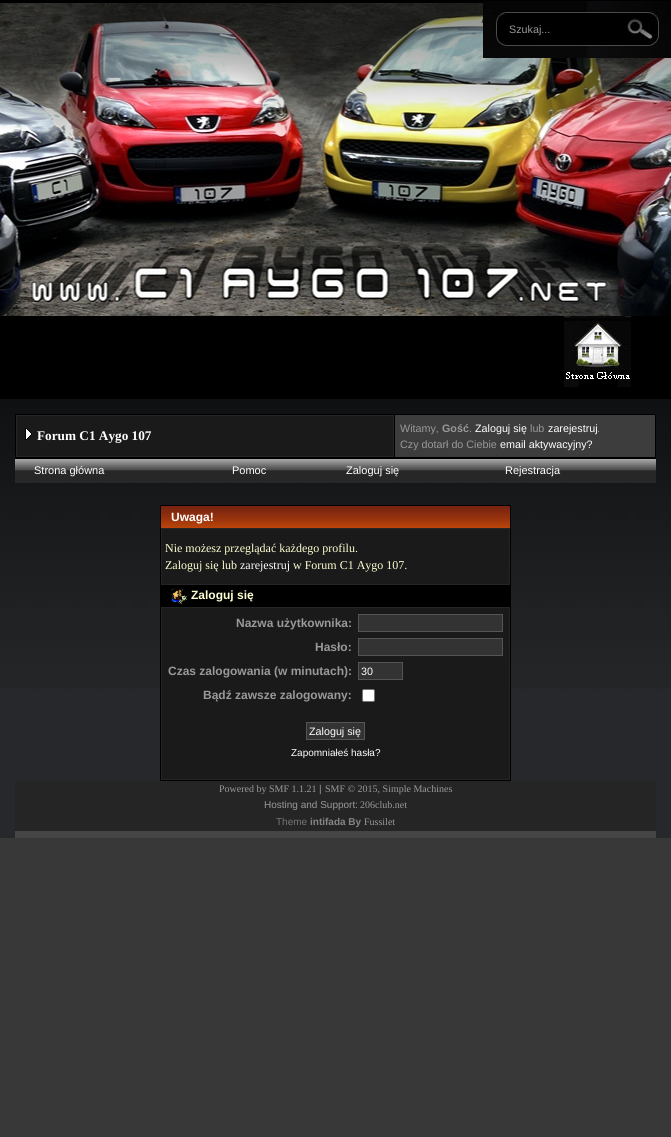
#include <cairo.h>
#include <math.h>
#include <stddef.h>


static void set_color(cairo_t *cr, unsigned color) {
    cairo_set_source_rgb(cr, (color >> 16) / 255.0, (color >> 8 & 255) / 255.0, (color & 255) / 255.0);
}

static void draw_text(cairo_t *cr, double x, double y, const char *s, const char *family, double size, int italic, int bold, unsigned color) {
    cairo_select_font_face(cr, family, italic ? CAIRO_FONT_SLANT_ITALIC : CAIRO_FONT_SLANT_NORMAL,
        bold ? CAIRO_FONT_WEIGHT_BOLD : CAIRO_FONT_WEIGHT_NORMAL);
    cairo_set_font_size(cr, size);
    set_color(cr, color);
    cairo_move_to(cr, x, y);
    cairo_show_text(cr, s);
}

static void fill_rect(cairo_t *cr, double x, double y, double w, double h, unsigned color) {
    set_color(cr, color);
    cairo_rectangle(cr, x, y, w, h);
    cairo_fill(cr);
}

static void rounded_rect(cairo_t *cr, double x, double y, double w, double h, double r) {
    cairo_new_sub_path(cr);
    cairo_arc(cr, x + w - r, y + h - r, r, 0, M_PI / 2);
    cairo_arc(cr, x + r, y + h - r, r, M_PI / 2, M_PI);
    cairo_arc(cr, x + r, y + r, r, M_PI, 1.5 * M_PI);
    cairo_arc(cr, x + w - r, y + r, r, 1.5 * M_PI, 2 * M_PI);
    cairo_close_path(cr);
}

static void draw_image(cairo_t *cr, const char *path, double x, double y, double w, double h) {
    cairo_surface_t *image = cairo_image_surface_create_from_png(path);
    cairo_save(cr);
    cairo_set_source_surface(cr, image, x, y);
    cairo_rectangle(cr, x, y, w, h);
    cairo_fill(cr);
    cairo_restore(cr);
    cairo_surface_destroy(image);
}

int main(void) {
    cairo_surface_t *surface = cairo_image_surface_create(CAIRO_FORMAT_RGB24, 671, 1137);
    cairo_t *cr = cairo_create(surface);
    cairo_font_options_t *options = cairo_font_options_create();
    cairo_font_options_set_hint_metrics(options, CAIRO_HINT_METRICS_OFF);
    cairo_font_options_set_hint_style(options, CAIRO_HINT_STYLE_NONE);
    cairo_set_font_options(cr, options);
    cairo_set_miter_limit(cr, 4);
    set_color(cr, 0x383838);
    cairo_paint(cr);
    fill_rect(cr, 0, 0, 671, 3, 0x000000);
    draw_image(cr, "assets/img1.png", 0, 3, 671, 313);
    draw_image(cr, "assets/img2.png", 483, 1, 188, 57);
    draw_text(cr, 509, 33, "Szukaj...", "Liberation Sans", 10.75, 0, 0, 0x999999);
    fill_rect(cr, 0, 316, 671, 83, 0x000000);
    draw_image(cr, "assets/img3.png", 564, 316, 67, 71);
    fill_rect(cr, 0, 689, 671, 149, 0x27282C);
    draw_image(cr, "assets/img4.png", 0, 399, 671, 290);
    fill_rect(cr, 15, 414, 641, 45, 0x000000);
    set_color(cr, 0x1A1A1A);
    cairo_rectangle(cr, 16.5, 415.5, 377, 41);
    cairo_fill_preserve(cr);
    set_color(cr, 0x252525);
    cairo_set_line_width(cr, 1);
    cairo_stroke(cr);
    draw_image(cr, "assets/img5.png", 25, 428, 7, 12);
    draw_text(cr, 37, 440, "Forum C1 Aygo 107", "Liberation Serif", 13.25, 0, 1, 0xFFFFFF);
    fill_rect(cr, 395, 415, 260, 42, 0x3D3D3D);
    draw_text(cr, 400, 432, "Witamy,", "Liberation Sans", 10.75, 0, 0, 0x999999);
    draw_text(cr, 442, 432, "Gość", "Liberation Sans", 10.75, 0, 1, 0x999999);
    draw_text(cr, 469, 432, ".", "Liberation Sans", 10.75, 0, 0, 0x999999);
    draw_text(cr, 475, 432, "Zaloguj się", "Liberation Sans", 10.75, 0, 0, 0xFFFFFF);
    draw_text(cr, 530, 432, "lub", "Liberation Sans", 10.75, 0, 0, 0x999999);
    draw_text(cr, 548, 432, "zarejestruj", "Liberation Sans", 10.75, 0, 0, 0xFFFFFF);
    draw_text(cr, 597, 432, ".", "Liberation Sans", 10.75, 0, 0, 0x999999);
    draw_text(cr, 400, 448, "Czy dotarł do Ciebie", "Liberation Sans", 10.75, 0, 0, 0x999999);
    draw_text(cr, 500, 448, "email aktywacyjny?", "Liberation Sans", 10.75, 0, 0, 0xFFFFFF);
    draw_image(cr, "assets/img6.png", 15, 459, 641, 24);
    draw_text(cr, 34, 474, "Strona główna", "Liberation Sans", 11, 0, 0, 0xFFFFFF);
    draw_text(cr, 232, 474, "Pomoc", "Liberation Sans", 11, 0, 0, 0xFFFFFF);
    draw_text(cr, 346, 474, "Zaloguj się", "Liberation Sans", 11, 0, 0, 0xFFFFFF);
    draw_text(cr, 505, 474, "Rejestracja", "Liberation Sans", 11, 0, 0, 0xFFFFFF);
    cairo_rectangle(cr, 160.5, 505.5, 350, 275);
    set_color(cr, 0x000000);
    cairo_stroke(cr);
    draw_image(cr, "assets/img7.png", 161, 506, 349, 22);
    draw_text(cr, 171, 521, "Uwaga!", "Liberation Sans", 12, 0, 1, 0xFFFFFF);
    set_color(cr, 0x1A1A1A);
    cairo_rectangle(cr, 161.5, 528.5, 348, 56);
    cairo_fill_preserve(cr);
    set_color(cr, 0x252525);
    cairo_stroke(cr);
    draw_text(cr, 165, 552, "Nie możesz przeglądać każdego profilu.", "Liberation Serif", 12, 0, 0, 0xFFFFD2);
    draw_text(cr, 165, 569, "Zaloguj się lub", "Liberation Serif", 12, 0, 0, 0xFFFFD2);
    draw_text(cr, 240, 569, "zarejestruj", "Liberation Serif", 12, 0, 0, 0xFFFFFF);
    draw_text(cr, 293, 569, "w Forum C1 Aygo 107.", "Liberation Serif", 12, 0, 0, 0xFFFFD2);
    fill_rect(cr, 161, 585, 349, 22, 0x000000);
    draw_image(cr, "assets/img8.png", 171, 588, 16, 16);
    draw_text(cr, 191, 599, "Zaloguj się", "Liberation Sans", 12, 0, 1, 0xFFFFD2);
    set_color(cr, 0x1A1A1A);
    cairo_rectangle(cr, 161.5, 607.5, 348, 172);
    cairo_fill_preserve(cr);
    set_color(cr, 0x252525);
    cairo_stroke(cr);
    draw_text(cr, 236, 627, "Nazwa użytkownika:", "Liberation Sans", 12, 0, 1, 0x999999);
    set_color(cr, 0x333333);
    cairo_rectangle(cr, 358.5, 614.5, 144, 17);
    cairo_fill_preserve(cr);
    set_color(cr, 0x555555);
    cairo_stroke(cr);
    draw_text(cr, 315, 651, "Hasło:", "Liberation Sans", 12, 0, 1, 0x999999);
    set_color(cr, 0x333333);
    cairo_rectangle(cr, 358.5, 638.5, 144, 17);
    cairo_fill_preserve(cr);
    set_color(cr, 0x555555);
    cairo_stroke(cr);
    draw_text(cr, 168, 675, "Czas zalogowania (w minutach):", "Liberation Sans", 12, 0, 1, 0x999999);
    set_color(cr, 0x333333);
    cairo_rectangle(cr, 358.5, 662.5, 44, 17);
    cairo_fill_preserve(cr);
    set_color(cr, 0x555555);
    cairo_stroke(cr);
    draw_text(cr, 361, 675, "30", "Liberation Sans", 10.75, 0, 0, 0xFFFFFF);
    draw_text(cr, 203, 699, "Bądź zawsze zalogowany:", "Liberation Sans", 12, 0, 1, 0x999999);
    set_color(cr, 0xFFFFFF);
    rounded_rect(cr, 362.5, 689.5, 12, 12, 1.5);
    cairo_fill_preserve(cr);
    set_color(cr, 0x767676);
    cairo_stroke(cr);
    set_color(cr, 0x333333);
    cairo_rectangle(cr, 306.5, 722.5, 58, 17);
    cairo_fill_preserve(cr);
    set_color(cr, 0x555555);
    cairo_stroke(cr);
    draw_text(cr, 309, 735, "Zaloguj się", "Liberation Sans", 10.75, 0, 0, 0xFFFFFF);
    draw_text(cr, 291, 756, "Zapomniałeś hasła?", "Liberation Sans", 10, 0, 0, 0xFFFFFF);
    fill_rect(cr, 15, 781, 641, 50, 0x252525);
    fill_rect(cr, 15, 831, 641, 7, 0x454545);
    draw_text(cr, 219, 792, "Powered by SMF 1.1.21", "Liberation Serif", 10, 0, 0, 0x999999);
    draw_text(cr, 319, 792, "|", "Liberation Sans", 10, 0, 0, 0x999999);
    draw_text(cr, 325, 792, "SMF © 2015, Simple Machines", "Liberation Serif", 10, 0, 0, 0x999999);
    draw_text(cr, 264, 808, "Hosting and Support:", "Liberation Sans", 10, 0, 0, 0x999999);
    draw_text(cr, 360, 808, "206club.net", "Liberation Serif", 10, 0, 0, 0x999999);
    draw_text(cr, 276, 825, "Theme", "Liberation Sans", 10, 0, 0, 0x757575);
    draw_text(cr, 310, 825, "intifada By", "Liberation Sans", 10, 0, 1, 0x858585);
    draw_text(cr, 364, 825, "Fussilet", "Liberation Serif", 10, 0, 0, 0x999999);
    cairo_surface_write_to_png(surface, "output.png");
    cairo_font_options_destroy(options);
    cairo_destroy(cr);
    cairo_surface_destroy(surface);
    return 0;
}
